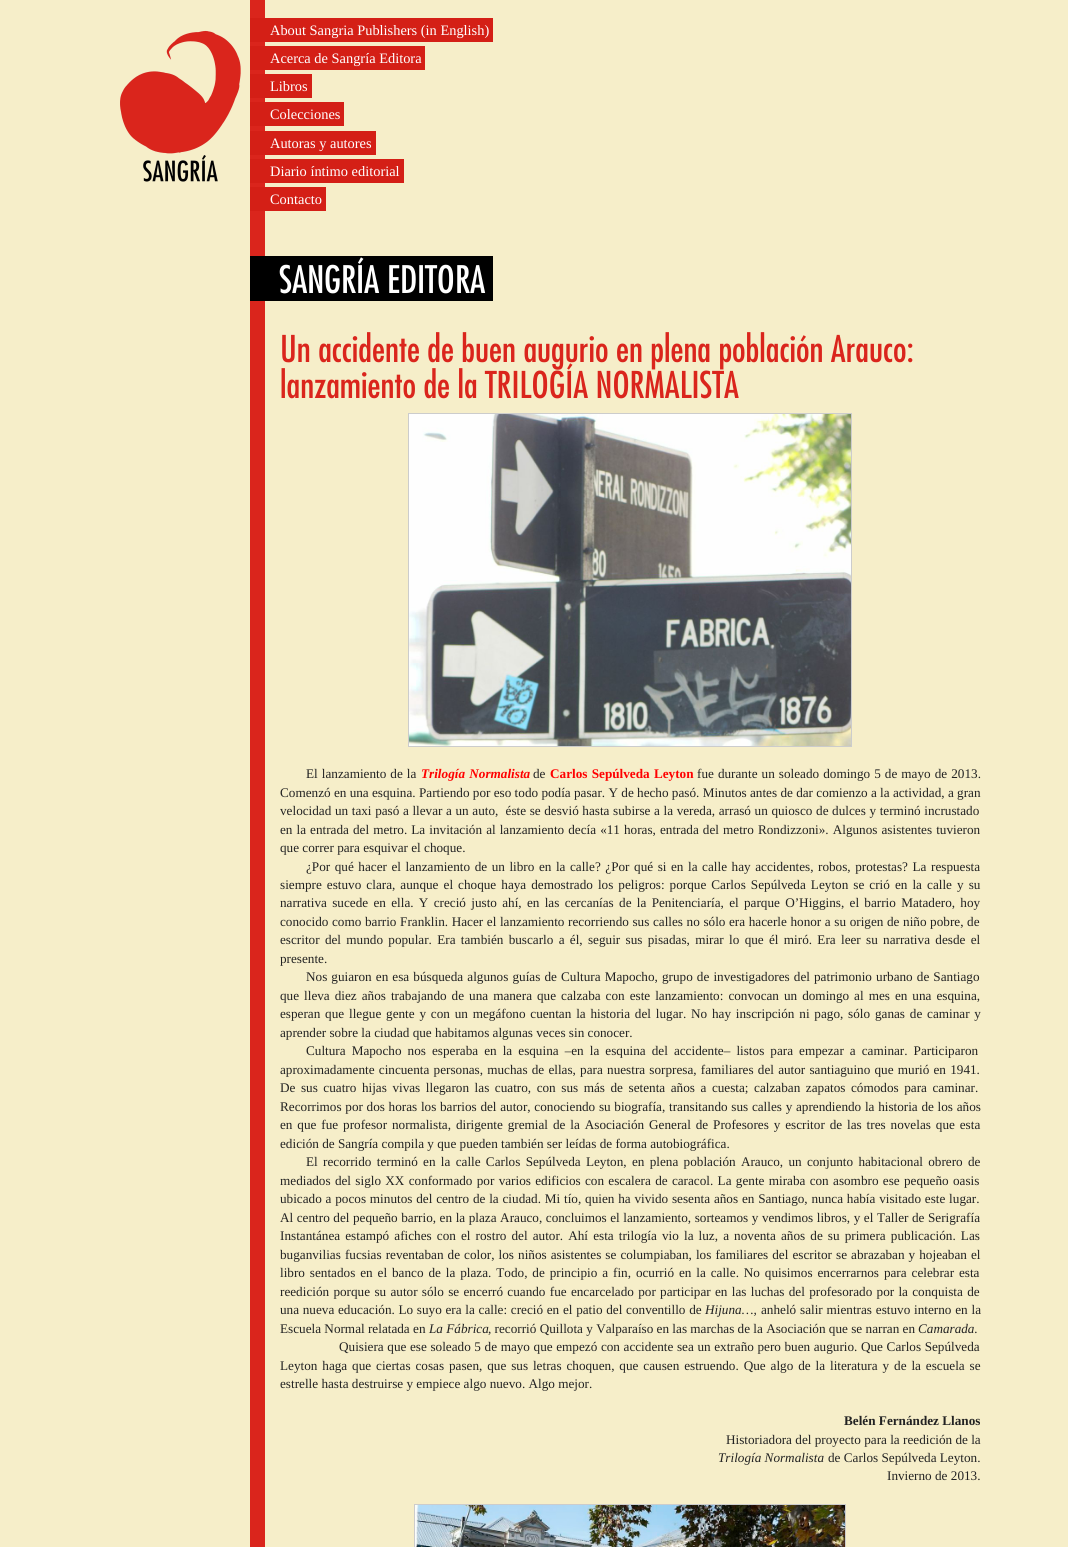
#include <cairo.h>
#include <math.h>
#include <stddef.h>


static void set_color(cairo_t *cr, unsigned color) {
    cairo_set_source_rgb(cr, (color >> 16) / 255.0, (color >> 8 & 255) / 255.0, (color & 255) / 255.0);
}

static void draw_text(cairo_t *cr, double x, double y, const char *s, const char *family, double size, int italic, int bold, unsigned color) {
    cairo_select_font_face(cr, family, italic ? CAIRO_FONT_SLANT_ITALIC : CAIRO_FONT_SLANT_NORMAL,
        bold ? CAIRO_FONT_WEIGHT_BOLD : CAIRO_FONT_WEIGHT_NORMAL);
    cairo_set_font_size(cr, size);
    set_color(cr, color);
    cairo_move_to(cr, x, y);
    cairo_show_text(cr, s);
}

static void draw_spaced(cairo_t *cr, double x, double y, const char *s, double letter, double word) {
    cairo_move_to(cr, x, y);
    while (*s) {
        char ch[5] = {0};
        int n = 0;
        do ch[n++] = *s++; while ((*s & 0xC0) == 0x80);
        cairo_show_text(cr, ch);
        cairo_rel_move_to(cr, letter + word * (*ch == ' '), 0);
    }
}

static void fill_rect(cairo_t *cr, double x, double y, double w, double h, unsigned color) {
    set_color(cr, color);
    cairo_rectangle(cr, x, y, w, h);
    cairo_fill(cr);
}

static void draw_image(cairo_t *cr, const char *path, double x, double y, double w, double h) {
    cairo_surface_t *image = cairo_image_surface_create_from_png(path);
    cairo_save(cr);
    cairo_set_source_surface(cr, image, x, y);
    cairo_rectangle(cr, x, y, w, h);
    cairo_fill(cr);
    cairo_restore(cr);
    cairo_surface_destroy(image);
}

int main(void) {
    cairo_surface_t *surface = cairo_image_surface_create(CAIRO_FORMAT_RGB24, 1068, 1547);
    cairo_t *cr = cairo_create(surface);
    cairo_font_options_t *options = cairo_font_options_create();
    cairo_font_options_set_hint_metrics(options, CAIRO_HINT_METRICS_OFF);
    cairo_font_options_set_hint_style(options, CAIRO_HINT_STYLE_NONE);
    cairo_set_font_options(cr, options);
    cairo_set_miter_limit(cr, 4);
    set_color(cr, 0xF6EEC9);
    cairo_paint(cr);
    fill_rect(cr, 250, 0, 15, 1547, 0xDA251C);
    draw_image(cr, "assets/img1.png", 120, 30, 121, 152);
    fill_rect(cr, 250, 18, 243, 24, 0xD41F16);
    draw_text(cr, 270, 35, "About Sangria Publishers (in English)", "Liberation Serif", 14.4, 0, 0, 0xFFFFFF);
    fill_rect(cr, 250, 46, 175, 24, 0xD41F16);
    draw_text(cr, 270, 63, "Acerca de Sangría Editora", "Liberation Serif", 14.4, 0, 0, 0xFFFFFF);
    fill_rect(cr, 250, 74, 62, 24, 0xD41F16);
    draw_text(cr, 270, 91, "Libros", "Liberation Serif", 14.4, 0, 0, 0xFFFFFF);
    fill_rect(cr, 250, 102, 94, 24, 0xD41F16);
    draw_text(cr, 270, 119, "Colecciones", "Liberation Serif", 14.4, 0, 0, 0xFFFFFF);
    fill_rect(cr, 250, 131, 126, 24, 0xD41F16);
    draw_text(cr, 270, 148, "Autoras y autores", "Liberation Serif", 14.4, 0, 0, 0xFFFFFF);
    fill_rect(cr, 250, 159, 154, 24, 0xD41F16);
    draw_text(cr, 270, 176, "Diario íntimo editorial", "Liberation Serif", 14.4, 0, 0, 0xFFFFFF);
    fill_rect(cr, 250, 187, 76, 24, 0xD41F16);
    draw_text(cr, 270, 204, "Contacto", "Liberation Serif", 14.4, 0, 0, 0xFFFFFF);
    draw_image(cr, "assets/img2.png", 250, 256, 243, 45);
    draw_text(cr, 280, 362, "Un accidente de buen augurio en plena población Arauco:", "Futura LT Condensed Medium", 36, 0, 0, 0xDA251C);
    draw_text(cr, 280, 398, "lanzamiento de la TRILOGÍA NORMALISTA", "Futura LT Condensed Medium", 36, 0, 0, 0xDA251C);
    cairo_rectangle(cr, 408.5, 413.5, 443, 333);
    set_color(cr, 0xCCCCCC);
    cairo_set_line_width(cr, 1);
    cairo_stroke(cr);
    draw_image(cr, "assets/img3.png", 409, 414, 442, 332);
    cairo_select_font_face(cr, "Liberation Serif", CAIRO_FONT_SLANT_NORMAL, CAIRO_FONT_WEIGHT_NORMAL);
    cairo_set_font_size(cr, 13.2);
    set_color(cr, 0x222222);
    draw_spaced(cr, 306, 778, "El lanzamiento de la", 0, 0.75);
    cairo_select_font_face(cr, "Liberation Serif", CAIRO_FONT_SLANT_ITALIC, CAIRO_FONT_WEIGHT_BOLD);
    set_color(cr, 0xFF0000);
    draw_spaced(cr, 421, 778, "Trilogía Normalista", 0, 1);
    draw_text(cr, 533, 778, "de", "Liberation Serif", 13.2, 0, 0, 0x222222);
    cairo_select_font_face(cr, "Liberation Serif", CAIRO_FONT_SLANT_NORMAL, CAIRO_FONT_WEIGHT_BOLD);
    set_color(cr, 0xFF0000);
    draw_spaced(cr, 550, 778, "Carlos Sepúlveda Leyton", 0, 1);
    cairo_select_font_face(cr, "Liberation Serif", CAIRO_FONT_SLANT_NORMAL, CAIRO_FONT_WEIGHT_NORMAL);
    set_color(cr, 0x222222);
    draw_spaced(cr, 697, 778, "fue durante un soleado domingo 5 de mayo de 2013.", 0, 0.75);
    draw_text(cr, 280, 797, "Comenzó en una esquina. Partiendo por eso todo podía pasar. Y de hecho pasó. Minutos antes de dar comienzo a la actividad, a gran", "Liberation Serif", 13.2, 0, 0, 0x222222);
    draw_spaced(cr, 280, 815, "velocidad un taxi pasó a llevar a un auto,  éste se desvió hasta subirse a la vereda, arrasó un quiosco de dulces y terminó incrustado", 0, 0.3);
    draw_spaced(cr, 280, 834, "en la entrada del metro. La invitación al lanzamiento decía «11 horas, entrada del metro Rondizzoni». Algunos asistentes tuvieron", 0, 0.75);
    draw_text(cr, 280, 852, "que correr para esquivar el choque.", "Liberation Serif", 13.2, 0, 0, 0x222222);
    draw_spaced(cr, 306, 871, "¿Por qué hacer el lanzamiento de un libro en la calle? ¿Por qué si en la calle hay accidentes, robos, protestas? La respuesta", 0, 1.25);
    draw_spaced(cr, 280, 889, "siempre estuvo clara, aunque el choque haya demostrado los peligros: porque Carlos Sepúlveda Leyton se crió en la calle y su", 0, 1.75);
    draw_spaced(cr, 280, 907, "narrativa sucede en ella. Y creció justo ahí, en las cercanías de la Penitenciaría, el parque O’Higgins, el barrio Matadero, hoy", 0, 2);
    draw_spaced(cr, 280, 926, "conocido como barrio Franklin. Hacer el lanzamiento recorriendo sus calles no sólo era hacerle honor a su origen de niño pobre, de", 0, 0.3);
    draw_spaced(cr, 280, 944, "escritor del mundo popular. Era también buscarlo a él, seguir sus pisadas, mirar lo que él miró. Era leer su narrativa desde el", 0, 2);
    draw_text(cr, 280, 963, "presente.", "Liberation Serif", 13.2, 0, 0, 0x222222);
    draw_spaced(cr, 306, 981, "Nos guiaron en esa búsqueda algunos guías de Cultura Mapocho, grupo de investigadores del patrimonio urbano de Santiago", 0, 0.8);
    draw_spaced(cr, 280, 1000, "que lleva diez años trabajando de una manera que calzaba con este lanzamiento: convocan un domingo al mes en una esquina,", 0, 1.7);
    draw_spaced(cr, 280, 1018, "esperan que llegue gente y con un megáfono cuentan la historia del lugar. No hay inscripción ni pago, sólo ganas de caminar y", 0, 1.5);
    draw_text(cr, 280, 1037, "aprender sobre la ciudad que habitamos algunas veces sin conocer.", "Liberation Serif", 13.2, 0, 0, 0x222222);
    draw_spaced(cr, 306, 1055, "Cultura Mapocho nos esperaba en la esquina –en la esquina del accidente– listos para empezar a caminar. Participaron", 0, 2.75);
    draw_spaced(cr, 280, 1074, "aproximadamente cincuenta personas, muchas de ellas, para nuestra sorpresa, familiares del autor santiaguino que murió en 1941.", 0, 0.9);
    draw_spaced(cr, 280, 1092, "De sus cuatro hijas vivas llegaron las cuatro, con sus más de setenta años a cuesta; calzaban zapatos cómodos para caminar.", 0, 2.25);
    draw_spaced(cr, 280, 1111, "Recorrimos por dos horas los barrios del autor, conociendo su biografía, transitando sus calles y aprendiendo la historia de los años", 0, 0.4);
    draw_spaced(cr, 280, 1129, "en que fue profesor normalista, dirigente gremial de la Asociación General de Profesores y escritor de las tres novelas que esta", 0, 1.6);
    draw_text(cr, 280, 1148, "edición de Sangría compila y que pueden también ser leídas de forma autobiográfica.", "Liberation Serif", 13.2, 0, 0, 0x222222);
    draw_spaced(cr, 306, 1166, "El recorrido terminó en la calle Carlos Sepúlveda Leyton, en plena población Arauco, un conjunto habitacional obrero de", 0, 2);
    draw_spaced(cr, 280, 1185, "mediados del siglo XX conformado por varios edificios con escalera de caracol. La gente miraba con asombro ese pequeño oasis", 0, 1);
    draw_spaced(cr, 280, 1203, "ubicado a pocos minutos del centro de la ciudad. Mi tío, quien ha vivido sesenta años en Santiago, nunca había visitado este lugar.", 0, 0.5);
    draw_spaced(cr, 280, 1222, "Al centro del pequeño barrio, en la plaza Arauco, concluimos el lanzamiento, sorteamos y vendimos libros, y el Taller de Serigrafía", 0, 0.25);
    draw_spaced(cr, 280, 1240, "Instantánea estampó afiches con el rostro del autor. Ahí esta trilogía vio la luz, a noventa años de su primera publicación. Las", 0, 1.8);
    draw_spaced(cr, 280, 1259, "buganvilias fucsias reventaban de color, los niños asistentes se columpiaban, los familiares del escritor se abrazaban y hojeaban el", 0, 0.75);
    draw_spaced(cr, 280, 1277, "libro sentados en el banco de la plaza. Todo, de principio a fin, ocurrió en la calle. No quisimos encerrarnos para celebrar esta", 0, 1.6);
    draw_spaced(cr, 280, 1296, "reedición porque su autor sólo se encerró cuando fue encarcelado por participar en las luchas del profesorado por la conquista de", 0, 1);
    draw_spaced(cr, 280, 1314, "una nueva educación. Lo suyo era la calle: creció en el patio del conventillo de", 0, 0.4);
    draw_text(cr, 705, 1314, "Hijuna…,", "Liberation Serif", 13.2, 1, 0, 0x222222);
    cairo_select_font_face(cr, "Liberation Serif", CAIRO_FONT_SLANT_NORMAL, CAIRO_FONT_WEIGHT_NORMAL);
    draw_spaced(cr, 761, 1314, "anheló salir mientras estuvo interno en la", 0, 0.5);
    draw_text(cr, 280, 1333, "Escuela Normal relatada en", "Liberation Serif", 13.2, 0, 0, 0x222222);
    draw_text(cr, 429, 1333, "La Fábrica", "Liberation Serif", 13.2, 1, 0, 0x222222);
    draw_text(cr, 488, 1333, ", recorrió Quillota y Valparaíso en las marchas de la Asociación que se narran en", "Liberation Serif", 13.2, 0, 0, 0x222222);
    draw_text(cr, 918, 1333, "Camarada.", "Liberation Serif", 13.2, 1, 0, 0x222222);
    cairo_select_font_face(cr, "Liberation Serif", CAIRO_FONT_SLANT_NORMAL, CAIRO_FONT_WEIGHT_NORMAL);
    draw_spaced(cr, 339, 1351, "Quisiera que ese soleado 5 de mayo que empezó con accidente sea un extraño pero buen augurio. Que Carlos Sepúlveda", 0, 0.3);
    draw_spaced(cr, 280, 1370, "Leyton haga que ciertas cosas pasen, que sus letras choquen, que causen estruendo. Que algo de la literatura y de la escuela se", 0, 1.6);
    draw_text(cr, 280, 1388, "estrelle hasta destruirse y empiece algo nuevo. Algo mejor.", "Liberation Serif", 13.2, 0, 0, 0x222222);
    draw_text(cr, 844, 1425, "Belén Fernández Llanos", "Liberation Serif", 13.2, 0, 1, 0x222222);
    draw_text(cr, 726, 1444, "Historiadora del proyecto para la reedición de la", "Liberation Serif", 13.2, 0, 0, 0x222222);
    draw_text(cr, 718, 1462, "Trilogía Normalista", "Liberation Serif", 13.2, 1, 0, 0x222222);
    draw_text(cr, 828, 1462, "de Carlos Sepúlveda Leyton.", "Liberation Serif", 13.2, 0, 0, 0x222222);
    draw_text(cr, 887, 1480, "Invierno de 2013.", "Liberation Serif", 13.2, 0, 0, 0x222222);
    cairo_rectangle(cr, 414.5, 1504.5, 431, 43);
    set_color(cr, 0xCCCCCC);
    cairo_stroke(cr);
    draw_image(cr, "assets/img4.png", 415, 1505, 430, 42);
    cairo_surface_write_to_png(surface, "output.png");
    cairo_font_options_destroy(options);
    cairo_destroy(cr);
    cairo_surface_destroy(surface);
    return 0;
}
